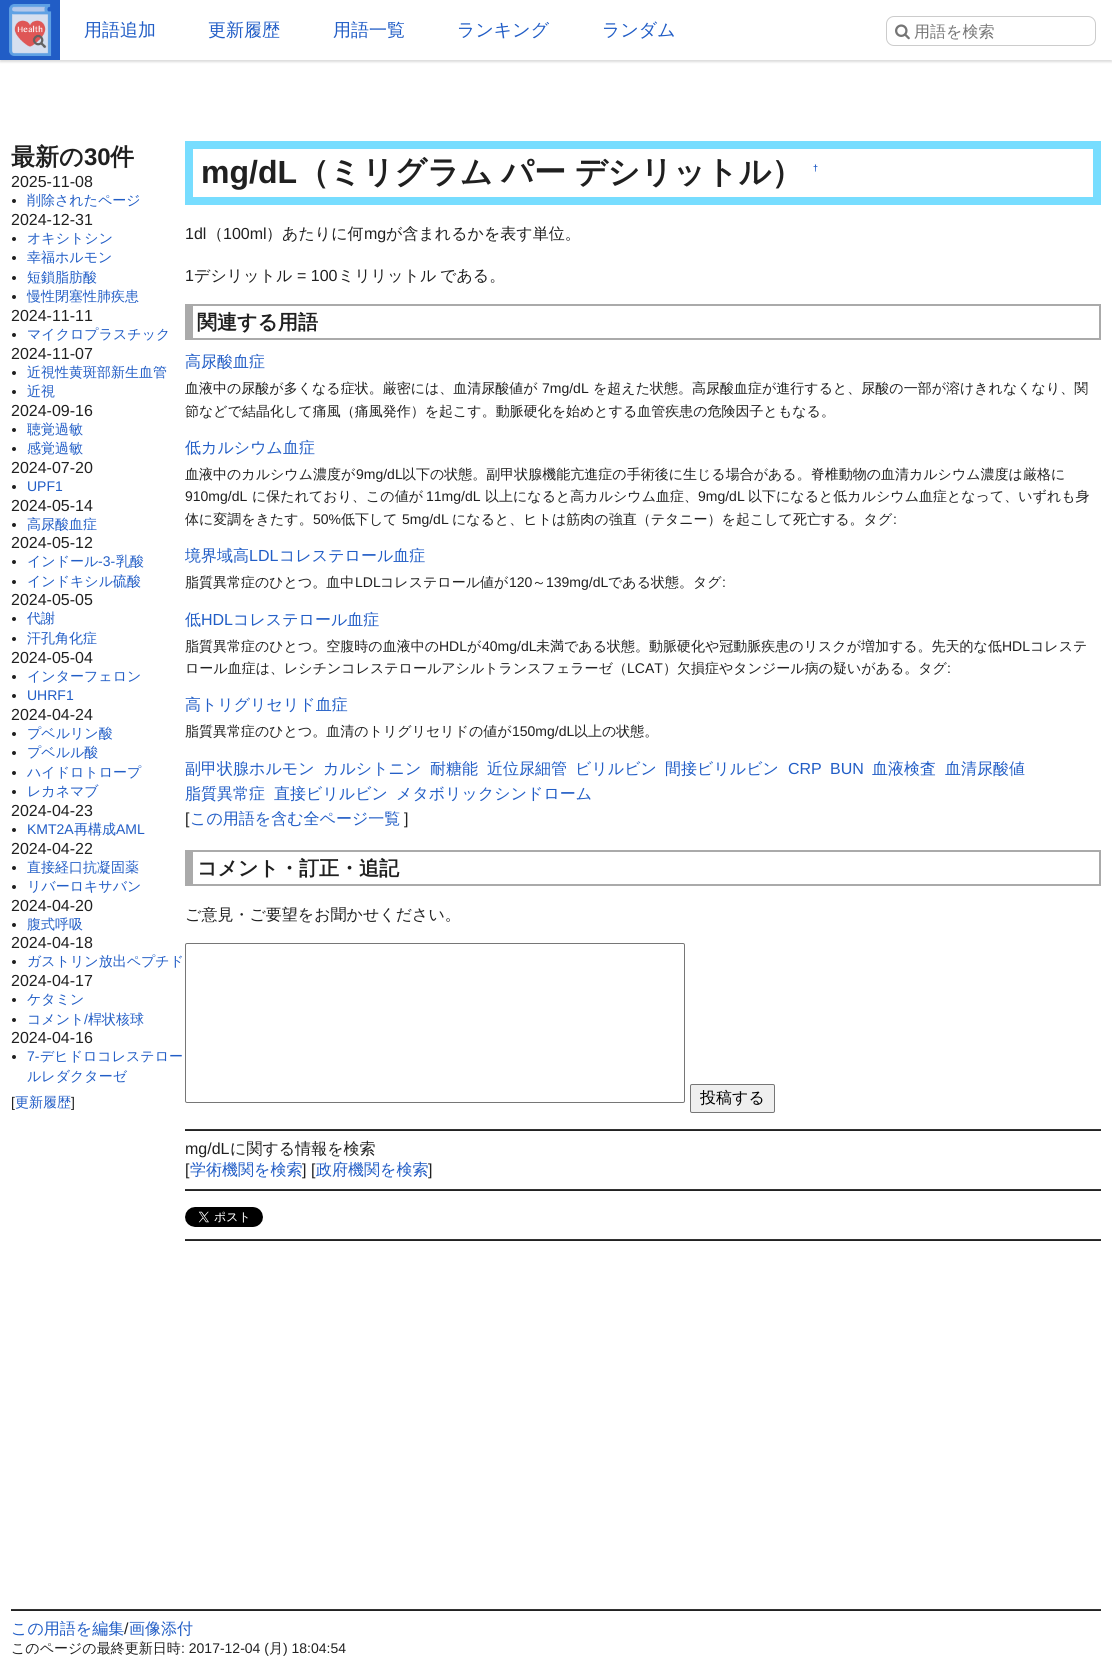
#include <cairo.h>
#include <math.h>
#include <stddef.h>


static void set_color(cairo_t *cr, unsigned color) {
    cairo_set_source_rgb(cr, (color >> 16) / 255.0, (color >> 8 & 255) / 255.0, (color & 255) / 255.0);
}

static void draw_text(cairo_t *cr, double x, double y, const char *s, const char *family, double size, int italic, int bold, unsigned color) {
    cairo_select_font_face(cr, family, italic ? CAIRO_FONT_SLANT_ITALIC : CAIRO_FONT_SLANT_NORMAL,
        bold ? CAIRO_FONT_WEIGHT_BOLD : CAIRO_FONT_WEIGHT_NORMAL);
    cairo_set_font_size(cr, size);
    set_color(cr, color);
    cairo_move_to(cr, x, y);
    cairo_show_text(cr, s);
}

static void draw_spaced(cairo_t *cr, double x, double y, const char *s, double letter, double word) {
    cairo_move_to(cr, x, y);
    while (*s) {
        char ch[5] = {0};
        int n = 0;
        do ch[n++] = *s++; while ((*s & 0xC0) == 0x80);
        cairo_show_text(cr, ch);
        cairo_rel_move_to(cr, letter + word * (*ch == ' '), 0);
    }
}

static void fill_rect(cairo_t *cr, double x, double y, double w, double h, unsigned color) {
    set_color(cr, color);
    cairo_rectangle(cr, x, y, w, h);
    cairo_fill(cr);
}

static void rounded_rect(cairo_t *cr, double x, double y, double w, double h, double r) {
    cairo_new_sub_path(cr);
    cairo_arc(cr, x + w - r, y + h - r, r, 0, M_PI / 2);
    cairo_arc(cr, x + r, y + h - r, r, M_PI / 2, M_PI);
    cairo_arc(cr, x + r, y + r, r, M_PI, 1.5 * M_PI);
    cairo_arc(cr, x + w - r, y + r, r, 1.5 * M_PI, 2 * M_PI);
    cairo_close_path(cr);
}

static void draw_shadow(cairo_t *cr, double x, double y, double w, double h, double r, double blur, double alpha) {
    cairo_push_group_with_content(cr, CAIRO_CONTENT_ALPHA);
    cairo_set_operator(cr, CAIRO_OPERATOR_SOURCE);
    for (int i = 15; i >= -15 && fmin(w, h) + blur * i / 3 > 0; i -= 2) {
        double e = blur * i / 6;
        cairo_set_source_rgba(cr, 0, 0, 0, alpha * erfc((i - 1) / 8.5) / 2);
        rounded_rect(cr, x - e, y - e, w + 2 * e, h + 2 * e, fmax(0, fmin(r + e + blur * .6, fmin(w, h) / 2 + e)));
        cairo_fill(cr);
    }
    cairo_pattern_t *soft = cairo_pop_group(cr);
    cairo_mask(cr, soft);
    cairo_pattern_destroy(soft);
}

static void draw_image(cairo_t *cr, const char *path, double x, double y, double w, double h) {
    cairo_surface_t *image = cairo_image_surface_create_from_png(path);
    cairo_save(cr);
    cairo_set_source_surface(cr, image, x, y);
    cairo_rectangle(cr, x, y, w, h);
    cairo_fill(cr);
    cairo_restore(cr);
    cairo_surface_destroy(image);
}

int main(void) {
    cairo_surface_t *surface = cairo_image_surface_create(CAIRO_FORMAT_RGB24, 1112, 1671);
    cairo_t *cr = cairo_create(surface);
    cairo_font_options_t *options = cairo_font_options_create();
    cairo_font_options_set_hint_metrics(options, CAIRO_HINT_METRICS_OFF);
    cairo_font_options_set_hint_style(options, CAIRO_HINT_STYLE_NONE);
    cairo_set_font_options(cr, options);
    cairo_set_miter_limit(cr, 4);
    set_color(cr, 0xFFFFFF);
    cairo_paint(cr);
    cairo_save(cr);
    cairo_rectangle(cr, 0, 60, 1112, 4);
    cairo_clip(cr);
    set_color(cr, 0xDDDDDD);
    draw_shadow(cr, 0, 2, 1112, 60, 0, 1, 1);
    cairo_restore(cr);
    fill_rect(cr, 0, 0, 60, 60, 0x215DC6);
    draw_image(cr, "assets/img1.png", 9, 4, 43, 52);
    draw_text(cr, 84, 36, "用語追加", "WenQuanYi Zen Hei Medium", 18, 0, 0, 0x215DC6);
    draw_text(cr, 208, 36, "更新履歴", "WenQuanYi Zen Hei Medium", 18, 0, 0, 0x215DC6);
    draw_text(cr, 333, 36, "用語一覧", "WenQuanYi Zen Hei Medium", 18, 0, 0, 0x215DC6);
    draw_text(cr, 457, 36, "ランキング", "WenQuanYi Zen Hei Medium", 18, 0, 0, 0x215DC6);
    draw_text(cr, 602, 36, "ランダム", "WenQuanYi Zen Hei Medium", 18, 0, 0, 0x215DC6);
    rounded_rect(cr, 886.5, 16.5, 209, 29, 7.5);
    set_color(cr, 0xCCCCCC);
    cairo_set_line_width(cr, 1);
    cairo_stroke(cr);
    draw_image(cr, "assets/img2.png", 895, 24, 15, 16);
    draw_text(cr, 914, 37, "用語を検索", "WenQuanYi Zen Hei Medium", 16, 0, 0, 0x757575);
    draw_text(cr, 11, 165, "最新の", "WenQuanYi Zen Hei", 24, 0, 1, 0x202020);
    draw_text(cr, 84, 165, "30", "Liberation Sans", 24, 0, 1, 0x202020);
    draw_text(cr, 110, 165, "件", "WenQuanYi Zen Hei", 24, 0, 1, 0x202020);
    draw_text(cr, 11, 187, "2025-11-08", "Liberation Sans", 16, 0, 0, 0x202020);
    cairo_new_path(cr);
    cairo_arc(cr, 14, 201, 2, 0, 2 * M_PI);
    cairo_fill(cr);
    draw_text(cr, 27, 205, "削除されたページ", "WenQuanYi Zen Hei Medium", 14, 0, 0, 0x215DC6);
    draw_text(cr, 11, 225, "2024-12-31", "Liberation Sans", 16, 0, 0, 0x202020);
    cairo_new_path(cr);
    cairo_arc(cr, 14, 239, 2, 0, 2 * M_PI);
    cairo_fill(cr);
    draw_text(cr, 27, 243, "オキシトシン", "WenQuanYi Zen Hei Medium", 14, 0, 0, 0x215DC6);
    set_color(cr, 0x202020);
    cairo_new_path(cr);
    cairo_arc(cr, 14, 258, 2, 0, 2 * M_PI);
    cairo_fill(cr);
    draw_text(cr, 27, 262, "幸福ホルモン", "WenQuanYi Zen Hei Medium", 14, 0, 0, 0x215DC6);
    set_color(cr, 0x202020);
    cairo_new_path(cr);
    cairo_arc(cr, 14, 278, 2, 0, 2 * M_PI);
    cairo_fill(cr);
    draw_text(cr, 27, 282, "短鎖脂肪酸", "WenQuanYi Zen Hei Medium", 14, 0, 0, 0x215DC6);
    set_color(cr, 0x202020);
    cairo_new_path(cr);
    cairo_arc(cr, 14, 297, 2, 0, 2 * M_PI);
    cairo_fill(cr);
    draw_text(cr, 27, 301, "慢性閉塞性肺疾患", "WenQuanYi Zen Hei Medium", 14, 0, 0, 0x215DC6);
    draw_text(cr, 11, 321, "2024-11-11", "Liberation Sans", 16, 0, 0, 0x202020);
    cairo_new_path(cr);
    cairo_arc(cr, 14, 335, 2, 0, 2 * M_PI);
    cairo_fill(cr);
    draw_text(cr, 27, 339, "マイクロプラスチック", "WenQuanYi Zen Hei Medium", 14, 0, 0, 0x215DC6);
    draw_text(cr, 11, 359, "2024-11-07", "Liberation Sans", 16, 0, 0, 0x202020);
    cairo_new_path(cr);
    cairo_arc(cr, 14, 373, 2, 0, 2 * M_PI);
    cairo_fill(cr);
    draw_text(cr, 27, 377, "近視性黄斑部新生血管", "WenQuanYi Zen Hei Medium", 14, 0, 0, 0x215DC6);
    set_color(cr, 0x202020);
    cairo_new_path(cr);
    cairo_arc(cr, 14, 392, 2, 0, 2 * M_PI);
    cairo_fill(cr);
    draw_text(cr, 27, 396, "近視", "WenQuanYi Zen Hei Medium", 14, 0, 0, 0x215DC6);
    draw_text(cr, 11, 416, "2024-09-16", "Liberation Sans", 16, 0, 0, 0x202020);
    cairo_new_path(cr);
    cairo_arc(cr, 14, 430, 2, 0, 2 * M_PI);
    cairo_fill(cr);
    draw_text(cr, 27, 434, "聴覚過敏", "WenQuanYi Zen Hei Medium", 14, 0, 0, 0x215DC6);
    set_color(cr, 0x202020);
    cairo_new_path(cr);
    cairo_arc(cr, 14, 449, 2, 0, 2 * M_PI);
    cairo_fill(cr);
    draw_text(cr, 27, 453, "感覚過敏", "WenQuanYi Zen Hei Medium", 14, 0, 0, 0x215DC6);
    draw_text(cr, 11, 473, "2024-07-20", "Liberation Sans", 16, 0, 0, 0x202020);
    cairo_new_path(cr);
    cairo_arc(cr, 14, 487, 2, 0, 2 * M_PI);
    cairo_fill(cr);
    draw_text(cr, 27, 491, "UPF1", "Liberation Sans", 14, 0, 0, 0x215DC6);
    draw_text(cr, 11, 511, "2024-05-14", "Liberation Sans", 16, 0, 0, 0x202020);
    cairo_new_path(cr);
    cairo_arc(cr, 14, 525, 2, 0, 2 * M_PI);
    cairo_fill(cr);
    draw_text(cr, 27, 529, "高尿酸血症", "WenQuanYi Zen Hei Medium", 14, 0, 0, 0x215DC6);
    draw_text(cr, 11, 548, "2024-05-12", "Liberation Sans", 16, 0, 0, 0x202020);
    cairo_new_path(cr);
    cairo_arc(cr, 14, 562, 2, 0, 2 * M_PI);
    cairo_fill(cr);
    draw_text(cr, 27, 566, "インドール", "WenQuanYi Zen Hei Medium", 14, 0, 0, 0x215DC6);
    draw_text(cr, 98, 566, "-3-", "Liberation Sans", 14, 0, 0, 0x215DC6);
    draw_text(cr, 116, 566, "乳酸", "WenQuanYi Zen Hei Medium", 14, 0, 0, 0x215DC6);
    set_color(cr, 0x202020);
    cairo_new_path(cr);
    cairo_arc(cr, 14, 582, 2, 0, 2 * M_PI);
    cairo_fill(cr);
    draw_text(cr, 27, 586, "インドキシル硫酸", "WenQuanYi Zen Hei Medium", 14, 0, 0, 0x215DC6);
    draw_text(cr, 11, 605, "2024-05-05", "Liberation Sans", 16, 0, 0, 0x202020);
    cairo_new_path(cr);
    cairo_arc(cr, 14, 619, 2, 0, 2 * M_PI);
    cairo_fill(cr);
    draw_text(cr, 27, 623, "代謝", "WenQuanYi Zen Hei Medium", 14, 0, 0, 0x215DC6);
    set_color(cr, 0x202020);
    cairo_new_path(cr);
    cairo_arc(cr, 14, 639, 2, 0, 2 * M_PI);
    cairo_fill(cr);
    draw_text(cr, 27, 643, "汗孔角化症", "WenQuanYi Zen Hei Medium", 14, 0, 0, 0x215DC6);
    draw_text(cr, 11, 663, "2024-05-04", "Liberation Sans", 16, 0, 0, 0x202020);
    cairo_new_path(cr);
    cairo_arc(cr, 14, 677, 2, 0, 2 * M_PI);
    cairo_fill(cr);
    draw_text(cr, 27, 681, "インターフェロン", "WenQuanYi Zen Hei Medium", 14, 0, 0, 0x215DC6);
    set_color(cr, 0x202020);
    cairo_new_path(cr);
    cairo_arc(cr, 14, 696, 2, 0, 2 * M_PI);
    cairo_fill(cr);
    draw_text(cr, 27, 700, "UHRF1", "Liberation Sans", 14, 0, 0, 0x215DC6);
    draw_text(cr, 11, 720, "2024-04-24", "Liberation Sans", 16, 0, 0, 0x202020);
    cairo_new_path(cr);
    cairo_arc(cr, 14, 734, 2, 0, 2 * M_PI);
    cairo_fill(cr);
    draw_text(cr, 27, 738, "プベルリン酸", "WenQuanYi Zen Hei Medium", 14, 0, 0, 0x215DC6);
    set_color(cr, 0x202020);
    cairo_new_path(cr);
    cairo_arc(cr, 14, 753, 2, 0, 2 * M_PI);
    cairo_fill(cr);
    draw_text(cr, 27, 757, "プベルル酸", "WenQuanYi Zen Hei Medium", 14, 0, 0, 0x215DC6);
    set_color(cr, 0x202020);
    cairo_new_path(cr);
    cairo_arc(cr, 14, 773, 2, 0, 2 * M_PI);
    cairo_fill(cr);
    draw_text(cr, 27, 777, "ハイドロトロープ", "WenQuanYi Zen Hei Medium", 14, 0, 0, 0x215DC6);
    set_color(cr, 0x202020);
    cairo_new_path(cr);
    cairo_arc(cr, 14, 792, 2, 0, 2 * M_PI);
    cairo_fill(cr);
    draw_text(cr, 27, 796, "レカネマブ", "WenQuanYi Zen Hei Medium", 14, 0, 0, 0x215DC6);
    draw_text(cr, 11, 816, "2024-04-23", "Liberation Sans", 16, 0, 0, 0x202020);
    cairo_new_path(cr);
    cairo_arc(cr, 14, 830, 2, 0, 2 * M_PI);
    cairo_fill(cr);
    draw_text(cr, 27, 834, "KMT2A", "Liberation Sans", 14, 0, 0, 0x215DC6);
    draw_text(cr, 74, 834, "再構成", "WenQuanYi Zen Hei Medium", 14, 0, 0, 0x215DC6);
    draw_text(cr, 116, 834, "AML", "Liberation Sans", 14, 0, 0, 0x215DC6);
    draw_text(cr, 11, 854, "2024-04-22", "Liberation Sans", 16, 0, 0, 0x202020);
    cairo_new_path(cr);
    cairo_arc(cr, 14, 868, 2, 0, 2 * M_PI);
    cairo_fill(cr);
    draw_text(cr, 27, 872, "直接経口抗凝固薬", "WenQuanYi Zen Hei Medium", 14, 0, 0, 0x215DC6);
    set_color(cr, 0x202020);
    cairo_new_path(cr);
    cairo_arc(cr, 14, 887, 2, 0, 2 * M_PI);
    cairo_fill(cr);
    draw_text(cr, 27, 891, "リバーロキサバン", "WenQuanYi Zen Hei Medium", 14, 0, 0, 0x215DC6);
    draw_text(cr, 11, 911, "2024-04-20", "Liberation Sans", 16, 0, 0, 0x202020);
    cairo_new_path(cr);
    cairo_arc(cr, 14, 925, 2, 0, 2 * M_PI);
    cairo_fill(cr);
    draw_text(cr, 27, 929, "腹式呼吸", "WenQuanYi Zen Hei Medium", 14, 0, 0, 0x215DC6);
    draw_text(cr, 11, 948, "2024-04-18", "Liberation Sans", 16, 0, 0, 0x202020);
    cairo_new_path(cr);
    cairo_arc(cr, 14, 962, 2, 0, 2 * M_PI);
    cairo_fill(cr);
    draw_text(cr, 27, 966, "ガストリン放出ペプチド", "WenQuanYi Zen Hei Medium", 14, 0, 0, 0x215DC6);
    draw_text(cr, 11, 986, "2024-04-17", "Liberation Sans", 16, 0, 0, 0x202020);
    cairo_new_path(cr);
    cairo_arc(cr, 14, 1000, 2, 0, 2 * M_PI);
    cairo_fill(cr);
    draw_text(cr, 27, 1004, "ケタミン", "WenQuanYi Zen Hei Medium", 14, 0, 0, 0x215DC6);
    set_color(cr, 0x202020);
    cairo_new_path(cr);
    cairo_arc(cr, 14, 1020, 2, 0, 2 * M_PI);
    cairo_fill(cr);
    draw_text(cr, 27, 1024, "コメント", "WenQuanYi Zen Hei Medium", 14, 0, 0, 0x215DC6);
    draw_text(cr, 84, 1024, "/", "Liberation Sans", 14, 0, 0, 0x215DC6);
    draw_text(cr, 88, 1024, "桿状核球", "WenQuanYi Zen Hei Medium", 14, 0, 0, 0x215DC6);
    draw_text(cr, 11, 1043, "2024-04-16", "Liberation Sans", 16, 0, 0, 0x202020);
    cairo_new_path(cr);
    cairo_arc(cr, 14, 1057, 2, 0, 2 * M_PI);
    cairo_fill(cr);
    draw_text(cr, 27, 1061, "7-", "Liberation Sans", 14, 0, 0, 0x215DC6);
    draw_text(cr, 40, 1061, "デヒドロコレステロー", "WenQuanYi Zen Hei Medium", 14, 0, 0, 0x215DC6);
    draw_text(cr, 27, 1081, "ルレダクターゼ", "WenQuanYi Zen Hei Medium", 14, 0, 0, 0x215DC6);
    draw_text(cr, 11, 1107, "[", "Liberation Sans", 14, 0, 0, 0x202020);
    draw_text(cr, 15, 1107, "更新履歴", "WenQuanYi Zen Hei Medium", 14, 0, 0, 0x215DC6);
    draw_text(cr, 71, 1107, "]", "Liberation Sans", 14, 0, 0, 0x202020);
    cairo_rectangle(cr, 189, 145, 908, 56);
    set_color(cr, 0x77DDFF);
    cairo_set_line_width(cr, 8);
    cairo_stroke(cr);
    draw_text(cr, 201, 183, "mg/dL", "Liberation Sans", 32, 0, 1, 0x202020);
    cairo_select_font_face(cr, "WenQuanYi Zen Hei", CAIRO_FONT_SLANT_NORMAL, CAIRO_FONT_WEIGHT_BOLD);
    draw_spaced(cr, 297, 183, "（ミリグラム パー デシリットル）", 0, -1);
    draw_text(cr, 813, 171, "†", "Liberation Sans", 9, 0, 1, 0x215DC6);
    draw_text(cr, 185, 239, "1dl", "Liberation Sans", 16, 0, 0, 0x202020);
    draw_text(cr, 207, 239, "（", "WenQuanYi Zen Hei Medium", 16, 0, 0, 0x202020);
    draw_text(cr, 223, 239, "100ml", "Liberation Sans", 16, 0, 0, 0x202020);
    draw_text(cr, 266, 239, "）あたりに何", "WenQuanYi Zen Hei Medium", 16, 0, 0, 0x202020);
    draw_text(cr, 364, 239, "mg", "Liberation Sans", 16, 0, 0, 0x202020);
    draw_text(cr, 386, 239, "が含まれるかを表す単位。", "WenQuanYi Zen Hei Medium", 16, 0, 0, 0x202020);
    draw_text(cr, 185, 281, "1", "Liberation Sans", 16, 0, 0, 0x202020);
    draw_text(cr, 194, 281, "デシリットル", "WenQuanYi Zen Hei Medium", 16, 0, 0, 0x202020);
    draw_text(cr, 297, 281, "= 100", "Liberation Sans", 16, 0, 0, 0x202020);
    draw_text(cr, 338, 281, "ミリリットル", "WenQuanYi Zen Hei Medium", 16, 0, 0, 0x202020);
    draw_text(cr, 440, 281, "である。", "WenQuanYi Zen Hei Medium", 16, 0, 0, 0x202020);
    fill_rect(cr, 185, 304, 916, 2, 0xAAAAAA);
    fill_rect(cr, 1099, 304, 2, 36, 0xAAAAAA);
    fill_rect(cr, 185, 338, 916, 2, 0xAAAAAA);
    fill_rect(cr, 185, 304, 8, 36, 0xAAAAAA);
    draw_text(cr, 197, 329, "関連する用語", "WenQuanYi Zen Hei", 20, 0, 1, 0x202020);
    draw_text(cr, 185, 367, "高尿酸血症", "WenQuanYi Zen Hei Medium", 16, 0, 0, 0x215DC6);
    draw_text(cr, 185, 393, "血液中の尿酸が多くなる症状。厳密には、血清尿酸値が", "WenQuanYi Zen Hei Medium", 14, 0, 0, 0x202020);
    draw_text(cr, 542, 393, "7mg/dL", "Liberation Sans", 14, 0, 0, 0x202020);
    draw_text(cr, 593, 393, "を超えた状態。高尿酸血症が進行すると、尿酸の一部が溶けきれなくなり、関", "WenQuanYi Zen Hei Medium", 14, 0, 0, 0x202020);
    draw_text(cr, 185, 416, "節などで結晶化して痛風（痛風発作）を起こす。動脈硬化を始めとする血管疾患の危険因子ともなる。", "WenQuanYi Zen Hei Medium", 14, 0, 0, 0x202020);
    draw_text(cr, 185, 453, "低カルシウム血症", "WenQuanYi Zen Hei Medium", 16, 0, 0, 0x215DC6);
    draw_text(cr, 185, 479, "血液中のカルシウム濃度が", "WenQuanYi Zen Hei Medium", 14, 0, 0, 0x202020);
    draw_text(cr, 356, 479, "9mg/dL", "Liberation Sans", 14, 0, 0, 0x202020);
    draw_text(cr, 402, 479, "以下の状態。副甲状腺機能亢進症の手術後に生じる場合がある。脊椎動物の血清カルシウム濃度は厳格に", "WenQuanYi Zen Hei Medium", 14, 0, 0, 0x202020);
    draw_text(cr, 185, 501, "910mg/dL", "Liberation Sans", 14, 0, 0, 0x202020);
    draw_text(cr, 252, 501, "に保たれており、この値が", "WenQuanYi Zen Hei Medium", 14, 0, 0, 0x202020);
    draw_text(cr, 426, 501, "11mg/dL", "Liberation Sans", 14, 0, 0, 0x202020);
    draw_text(cr, 485, 501, "以上になると高カルシウム血症、", "WenQuanYi Zen Hei Medium", 14, 0, 0, 0x202020);
    draw_text(cr, 698, 501, "9mg/dL", "Liberation Sans", 14, 0, 0, 0x202020);
    draw_text(cr, 748, 501, "以下になると低カルシウム血症となって、いずれも身", "WenQuanYi Zen Hei Medium", 14, 0, 0, 0x202020);
    draw_text(cr, 185, 524, "体に変調をきたす。", "WenQuanYi Zen Hei Medium", 14, 0, 0, 0x202020);
    draw_text(cr, 313, 524, "50%", "Liberation Sans", 14, 0, 0, 0x202020);
    draw_text(cr, 341, 524, "低下して", "WenQuanYi Zen Hei Medium", 14, 0, 0, 0x202020);
    draw_text(cr, 402, 524, "5mg/dL", "Liberation Sans", 14, 0, 0, 0x202020);
    draw_text(cr, 452, 524, "になると、ヒトは筋肉の強直（テタニー）を起こして死亡する。タグ", "WenQuanYi Zen Hei Medium", 14, 0, 0, 0x202020);
    draw_text(cr, 893, 524, ":", "Liberation Sans", 14, 0, 0, 0x202020);
    draw_text(cr, 185, 561, "境界域高", "WenQuanYi Zen Hei Medium", 16, 0, 0, 0x215DC6);
    draw_text(cr, 249, 561, "LDL", "Liberation Sans", 16, 0, 0, 0x215DC6);
    draw_text(cr, 279, 561, "コレステロール血症", "WenQuanYi Zen Hei Medium", 16, 0, 0, 0x215DC6);
    draw_text(cr, 185, 587, "脂質異常症のひとつ。血中", "WenQuanYi Zen Hei Medium", 14, 0, 0, 0x202020);
    draw_text(cr, 355, 587, "LDL", "Liberation Sans", 14, 0, 0, 0x202020);
    draw_text(cr, 380, 587, "コレステロール値が", "WenQuanYi Zen Hei Medium", 14, 0, 0, 0x202020);
    draw_text(cr, 509, 587, "120", "Liberation Sans", 14, 0, 0, 0x202020);
    draw_text(cr, 532, 587, "～", "WenQuanYi Zen Hei Medium", 14, 0, 0, 0x202020);
    draw_text(cr, 546, 587, "139mg/dL", "Liberation Sans", 14, 0, 0, 0x202020);
    draw_text(cr, 608, 587, "である状態。タグ", "WenQuanYi Zen Hei Medium", 14, 0, 0, 0x202020);
    draw_text(cr, 722, 587, ":", "Liberation Sans", 14, 0, 0, 0x202020);
    draw_text(cr, 185, 625, "低", "WenQuanYi Zen Hei Medium", 16, 0, 0, 0x215DC6);
    draw_text(cr, 201, 625, "HDL", "Liberation Sans", 16, 0, 0, 0x215DC6);
    draw_text(cr, 233, 625, "コレステロール血症", "WenQuanYi Zen Hei Medium", 16, 0, 0, 0x215DC6);
    draw_text(cr, 185, 651, "脂質異常症のひとつ。空腹時の血液中の", "WenQuanYi Zen Hei Medium", 14, 0, 0, 0x202020);
    draw_text(cr, 439, 651, "HDL", "Liberation Sans", 14, 0, 0, 0x202020);
    draw_text(cr, 467, 651, "が", "WenQuanYi Zen Hei Medium", 14, 0, 0, 0x202020);
    draw_text(cr, 482, 651, "40mg/dL", "Liberation Sans", 14, 0, 0, 0x202020);
    draw_text(cr, 536, 651, "未満である状態。動脈硬化や冠動脈疾患のリスクが増加する。先天的な低", "WenQuanYi Zen Hei Medium", 14, 0, 0, 0x202020);
    draw_text(cr, 1002, 651, "HDL", "Liberation Sans", 14, 0, 0, 0x202020);
    draw_text(cr, 1030, 651, "コレステ", "WenQuanYi Zen Hei Medium", 14, 0, 0, 0x202020);
    draw_text(cr, 185, 673, "ロール血症は、レシチンコレステロールアシルトランスフェラーゼ（", "WenQuanYi Zen Hei Medium", 14, 0, 0, 0x202020);
    draw_text(cr, 627, 673, "LCAT", "Liberation Sans", 14, 0, 0, 0x202020);
    draw_text(cr, 663, 673, "）欠損症やタンジール病の疑いがある。タグ", "WenQuanYi Zen Hei Medium", 14, 0, 0, 0x202020);
    draw_text(cr, 947, 673, ":", "Liberation Sans", 14, 0, 0, 0x202020);
    draw_text(cr, 185, 710, "高トリグリセリド血症", "WenQuanYi Zen Hei Medium", 16, 0, 0, 0x215DC6);
    draw_text(cr, 185, 736, "脂質異常症のひとつ。血清のトリグリセリドの値が", "WenQuanYi Zen Hei Medium", 14, 0, 0, 0x202020);
    draw_text(cr, 512, 736, "150mg/dL", "Liberation Sans", 14, 0, 0, 0x202020);
    draw_text(cr, 574, 736, "以上の状態。", "WenQuanYi Zen Hei Medium", 14, 0, 0, 0x202020);
    draw_text(cr, 185, 774, "副甲状腺ホルモン", "WenQuanYi Zen Hei Medium", 16, 0, 0, 0x215DC6);
    draw_text(cr, 323, 774, "カルシトニン", "WenQuanYi Zen Hei Medium", 16, 0, 0, 0x215DC6);
    draw_text(cr, 430, 774, "耐糖能", "WenQuanYi Zen Hei Medium", 16, 0, 0, 0x215DC6);
    draw_text(cr, 487, 774, "近位尿細管", "WenQuanYi Zen Hei Medium", 16, 0, 0, 0x215DC6);
    draw_text(cr, 575, 774, "ビリルビン", "WenQuanYi Zen Hei Medium", 16, 0, 0, 0x215DC6);
    draw_text(cr, 665, 774, "間接ビリルビン", "WenQuanYi Zen Hei Medium", 16, 0, 0, 0x215DC6);
    draw_text(cr, 788, 774, "CRP", "Liberation Sans", 16, 0, 0, 0x215DC6);
    draw_text(cr, 830, 774, "BUN", "Liberation Sans", 16, 0, 0, 0x215DC6);
    draw_text(cr, 872, 774, "血液検査", "WenQuanYi Zen Hei Medium", 16, 0, 0, 0x215DC6);
    draw_text(cr, 945, 774, "血清尿酸値", "WenQuanYi Zen Hei Medium", 16, 0, 0, 0x215DC6);
    draw_text(cr, 185, 799, "脂質異常症", "WenQuanYi Zen Hei Medium", 16, 0, 0, 0x215DC6);
    draw_text(cr, 274, 799, "直接ビリルビン", "WenQuanYi Zen Hei Medium", 16, 0, 0, 0x215DC6);
    draw_text(cr, 396, 799, "メタボリックシンドローム", "WenQuanYi Zen Hei Medium", 16, 0, 0, 0x215DC6);
    draw_text(cr, 185, 824, "[", "Liberation Sans", 16, 0, 0, 0x202020);
    draw_text(cr, 190, 824, "この用語を含む全ページ一覧", "WenQuanYi Zen Hei Medium", 16, 0, 0, 0x215DC6);
    draw_text(cr, 404, 824, "]", "Liberation Sans", 16, 0, 0, 0x202020);
    fill_rect(cr, 185, 850, 916, 2, 0xAAAAAA);
    fill_rect(cr, 1099, 850, 2, 36, 0xAAAAAA);
    fill_rect(cr, 185, 884, 916, 2, 0xAAAAAA);
    fill_rect(cr, 185, 850, 8, 36, 0xAAAAAA);
    draw_text(cr, 197, 875, "コメント・訂正・追記", "WenQuanYi Zen Hei", 20, 0, 1, 0x202020);
    draw_text(cr, 185, 920, "ご意見・ご要望をお聞かせください。", "WenQuanYi Zen Hei Medium", 16, 0, 0, 0x202020);
    rounded_rect(cr, 185.5, 943.5, 499, 159, 1.5);
    set_color(cr, 0x767676);
    cairo_set_line_width(cr, 1);
    cairo_stroke(cr);
    set_color(cr, 0xEFEFEF);
    rounded_rect(cr, 690.5, 1084.5, 84, 28, 1.5);
    cairo_fill_preserve(cr);
    set_color(cr, 0x767676);
    cairo_stroke(cr);
    draw_text(cr, 700, 1103, "投稿する", "WenQuanYi Zen Hei Medium", 16, 0, 0, 0x000000);
    fill_rect(cr, 185, 1129, 916, 1, 0x333333);
    fill_rect(cr, 185, 1130, 916, 1, 0x222222);
    draw_text(cr, 185, 1154, "mg/dL", "Liberation Sans", 16, 0, 0, 0x202020);
    draw_text(cr, 230, 1154, "に関する情報を検索", "WenQuanYi Zen Hei Medium", 16, 0, 0, 0x202020);
    draw_text(cr, 185, 1175, "[", "Liberation Sans", 16, 0, 0, 0x202020);
    draw_text(cr, 190, 1175, "学術機関を検索", "WenQuanYi Zen Hei Medium", 16, 0, 0, 0x215DC6);
    draw_text(cr, 302, 1175, "] [", "Liberation Sans", 16, 0, 0, 0x202020);
    draw_text(cr, 316, 1175, "政府機関を検索", "WenQuanYi Zen Hei Medium", 16, 0, 0, 0x215DC6);
    draw_text(cr, 428, 1175, "]", "Liberation Sans", 16, 0, 0, 0x202020);
    fill_rect(cr, 185, 1189, 916, 1, 0x333333);
    fill_rect(cr, 185, 1190, 916, 1, 0x222222);
    draw_image(cr, "assets/img3.png", 185, 1207, 78, 20);
    fill_rect(cr, 185, 1239, 916, 1, 0x333333);
    fill_rect(cr, 185, 1240, 916, 1, 0x222222);
    fill_rect(cr, 11, 1609, 1090, 1, 0x333333);
    fill_rect(cr, 11, 1610, 1090, 1, 0x222222);
    draw_text(cr, 11, 1634, "この用語を編集", "WenQuanYi Zen Hei Medium", 16, 0, 0, 0x215DC6);
    draw_text(cr, 124, 1634, "/", "Liberation Sans", 16, 0, 0, 0x202020);
    draw_text(cr, 129, 1634, "画像添付", "WenQuanYi Zen Hei Medium", 16, 0, 0, 0x215DC6);
    draw_text(cr, 11, 1653, "このページの最終更新日時", "WenQuanYi Zen Hei Medium", 14, 0, 0, 0x202020);
    draw_text(cr, 181, 1653, ": 2017-12-04 (", "Liberation Sans", 14, 0, 0, 0x202020);
    draw_text(cr, 269, 1653, "月", "WenQuanYi Zen Hei Medium", 14, 0, 0, 0x202020);
    draw_text(cr, 283, 1653, ") 18:04:54", "Liberation Sans", 14, 0, 0, 0x202020);
    cairo_surface_write_to_png(surface, "output.png");
    cairo_font_options_destroy(options);
    cairo_destroy(cr);
    cairo_surface_destroy(surface);
    return 0;
}
